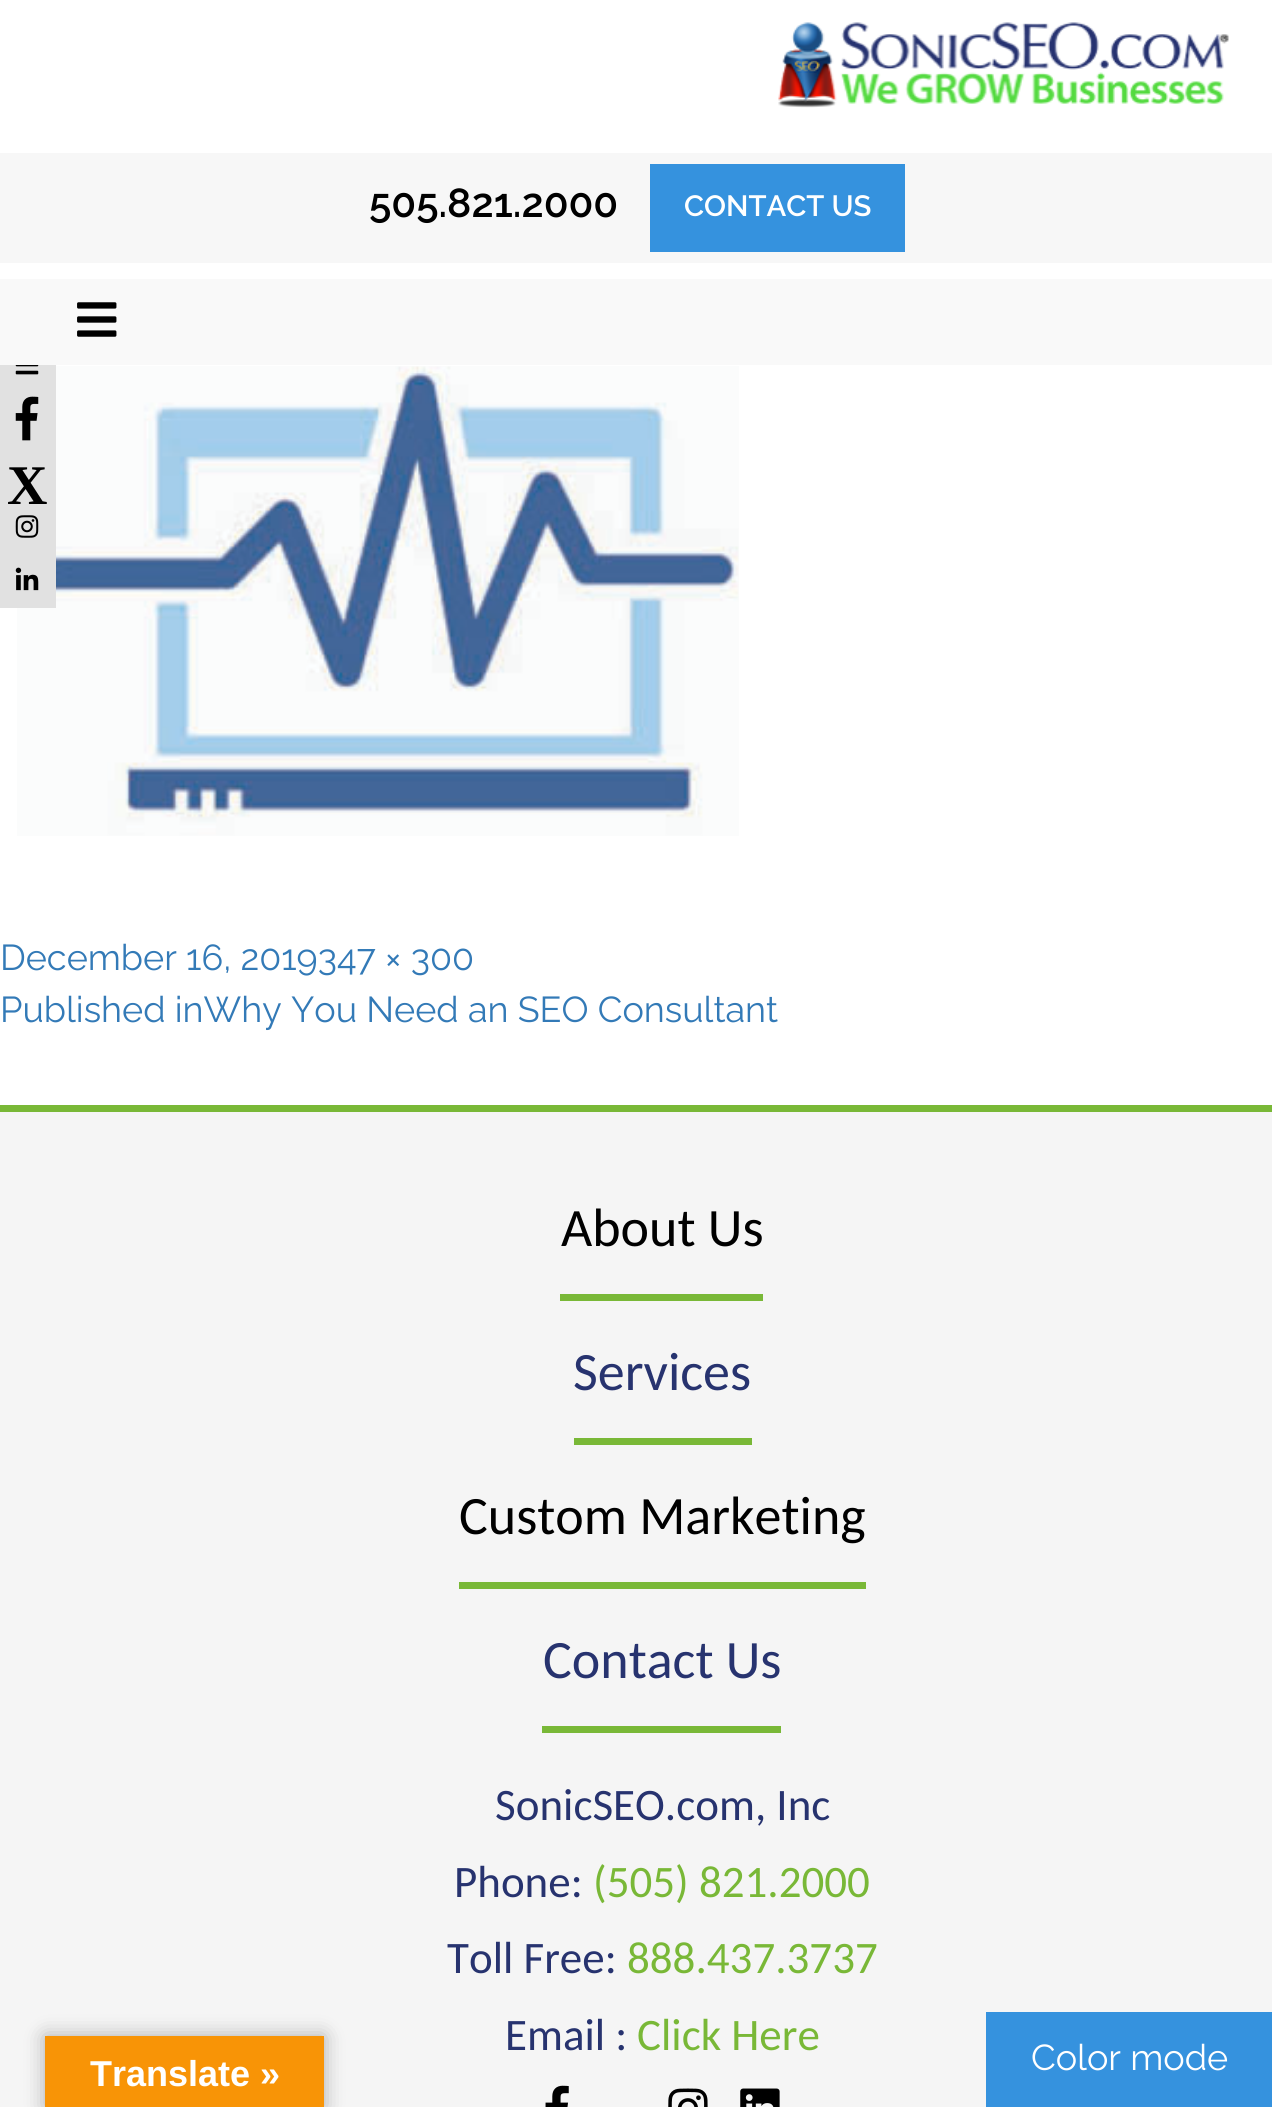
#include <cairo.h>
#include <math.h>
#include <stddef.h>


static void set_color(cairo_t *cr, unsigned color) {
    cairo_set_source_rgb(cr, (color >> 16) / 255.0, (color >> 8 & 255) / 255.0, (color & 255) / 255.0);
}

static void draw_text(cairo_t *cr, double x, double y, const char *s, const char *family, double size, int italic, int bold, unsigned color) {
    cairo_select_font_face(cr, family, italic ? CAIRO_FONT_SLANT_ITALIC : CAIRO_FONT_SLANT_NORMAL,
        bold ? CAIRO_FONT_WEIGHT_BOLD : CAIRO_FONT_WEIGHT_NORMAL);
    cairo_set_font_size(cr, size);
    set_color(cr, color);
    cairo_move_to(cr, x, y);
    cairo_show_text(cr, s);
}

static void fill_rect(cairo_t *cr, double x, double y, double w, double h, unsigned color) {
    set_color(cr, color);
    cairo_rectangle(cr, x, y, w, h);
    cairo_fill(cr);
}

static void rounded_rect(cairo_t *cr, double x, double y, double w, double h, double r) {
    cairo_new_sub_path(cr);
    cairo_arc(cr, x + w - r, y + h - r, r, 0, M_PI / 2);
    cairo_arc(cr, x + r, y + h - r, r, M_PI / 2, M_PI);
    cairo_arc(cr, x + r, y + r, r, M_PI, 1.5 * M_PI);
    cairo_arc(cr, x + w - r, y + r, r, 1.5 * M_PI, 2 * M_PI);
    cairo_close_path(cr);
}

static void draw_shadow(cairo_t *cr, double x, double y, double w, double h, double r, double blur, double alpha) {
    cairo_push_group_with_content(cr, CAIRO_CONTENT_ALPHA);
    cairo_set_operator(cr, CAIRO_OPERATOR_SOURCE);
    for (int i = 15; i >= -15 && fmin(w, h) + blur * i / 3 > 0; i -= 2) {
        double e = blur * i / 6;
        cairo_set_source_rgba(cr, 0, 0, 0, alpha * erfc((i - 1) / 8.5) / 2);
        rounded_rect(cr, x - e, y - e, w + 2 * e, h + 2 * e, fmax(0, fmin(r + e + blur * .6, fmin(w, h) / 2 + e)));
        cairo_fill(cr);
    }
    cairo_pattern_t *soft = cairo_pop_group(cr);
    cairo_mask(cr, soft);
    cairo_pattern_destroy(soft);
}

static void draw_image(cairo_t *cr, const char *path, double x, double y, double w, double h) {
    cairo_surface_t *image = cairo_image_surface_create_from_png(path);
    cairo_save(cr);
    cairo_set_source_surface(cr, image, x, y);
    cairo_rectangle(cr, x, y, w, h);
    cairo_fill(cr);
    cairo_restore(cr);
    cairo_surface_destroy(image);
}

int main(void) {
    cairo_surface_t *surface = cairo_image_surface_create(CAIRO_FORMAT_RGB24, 1272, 2107);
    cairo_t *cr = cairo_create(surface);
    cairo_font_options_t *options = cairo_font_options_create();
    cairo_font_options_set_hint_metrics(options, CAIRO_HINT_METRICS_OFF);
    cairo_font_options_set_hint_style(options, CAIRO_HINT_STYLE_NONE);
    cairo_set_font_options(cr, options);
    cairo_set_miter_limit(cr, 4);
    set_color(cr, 0xFFFFFF);
    cairo_paint(cr);
    draw_image(cr, "assets/img1.png", 778, 22, 451, 86);
    fill_rect(cr, 0, 279, 1272, 86, 0xF9F9F9);
    draw_image(cr, "assets/img2.png", 77, 302, 40, 35);
    fill_rect(cr, 0, 153, 1272, 110, 0xF7F7F7);
    draw_text(cr, 369, 217, "505.821.2000", "Raleway SemiBold", 40.5, 0, 0, 0x000000);
    fill_rect(cr, 650, 164, 255, 88, 0x3592DE);
    draw_text(cr, 684, 216, "CONTACT US", "Raleway SemiBold", 29.25, 0, 0, 0xFFFFFF);
    draw_image(cr, "assets/img7.png", 17, 366, 722, 470);
    fill_rect(cr, 0, 365, 56, 243, 0xE1E1E1);
    draw_image(cr, "assets/img3.png", 15, 365, 24, 10);
    draw_image(cr, "assets/img4.png", 15, 396, 24, 45);
    draw_text(cr, 7, 504, "X", "Liberation Serif", 56, 0, 1, 0x000000);
    draw_image(cr, "assets/img5.png", 15, 515, 24, 23);
    draw_image(cr, "assets/img6.png", 15, 567, 24, 24);
    draw_text(cr, 0, 970, "December 16, 2019347 × 300", "Raleway", 36, 0, 0, 0x337AB7);
    draw_text(cr, 0, 1022, "Published inWhy You Need an SEO Consultant", "Raleway", 36, 0, 0, 0x337AB7);
    fill_rect(cr, 0, 1112, 1272, 995, 0xF5F5F5);
    fill_rect(cr, 0, 1105, 1272, 7, 0x79B837);
    draw_text(cr, 561, 1246, "About Us", "Carlito", 54, 0, 0, 0x000000);
    fill_rect(cr, 560, 1294, 203, 7, 0x79B837);
    draw_text(cr, 573, 1390, "Services", "Carlito", 54, 0, 0, 0x27336F);
    fill_rect(cr, 574, 1438, 178, 7, 0x79B837);
    draw_text(cr, 459, 1534, "Custom Marketing", "Carlito", 54, 0, 0, 0x000000);
    fill_rect(cr, 459, 1582, 407, 7, 0x79B837);
    draw_text(cr, 543, 1678, "Contact Us", "Carlito", 54, 0, 0, 0x27336F);
    fill_rect(cr, 542, 1726, 239, 7, 0x79B837);
    draw_text(cr, 495, 1820, "SonicSEO.com, Inc", "Carlito", 45, 0, 0, 0x27336F);
    draw_text(cr, 454, 1897, "Phone:", "Carlito", 45, 0, 0, 0x27336F);
    draw_text(cr, 593, 1897, "(505) 821.2000", "Carlito", 45, 0, 0, 0x79B837);
    draw_text(cr, 447, 1973, "Toll Free:", "Carlito", 45, 0, 0, 0x27336F);
    draw_text(cr, 627, 1973, "888.437.3737", "Carlito", 45, 0, 0, 0x79B837);
    draw_text(cr, 505, 2050, "Email :", "Carlito", 45, 0, 0, 0x27336F);
    draw_text(cr, 637, 2050, "Click Here", "Carlito", 45, 0, 0, 0x79B837);
    draw_image(cr, "assets/img8.png", 545, 2085, 24, 22);
    draw_image(cr, "assets/img9.png", 668, 2088, 40, 19);
    draw_image(cr, "assets/img10.png", 740, 2088, 40, 19);
    set_color(cr, 0x000000);
    draw_shadow(cr, 45, 2036, 279, 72, 0, 10, 0.3);
    fill_rect(cr, 45, 2036, 279, 71, 0xF89406);
    draw_text(cr, 90, 2086, "Translate »", "Liberation Sans", 36, 0, 1, 0xFFFFFF);
    fill_rect(cr, 986, 2012, 286, 95, 0x3592DE);
    draw_text(cr, 1031, 2070, "Color mode", "Raleway", 36, 0, 0, 0xFFFFFF);
    cairo_surface_write_to_png(surface, "output.png");
    cairo_font_options_destroy(options);
    cairo_destroy(cr);
    cairo_surface_destroy(surface);
    return 0;
}
